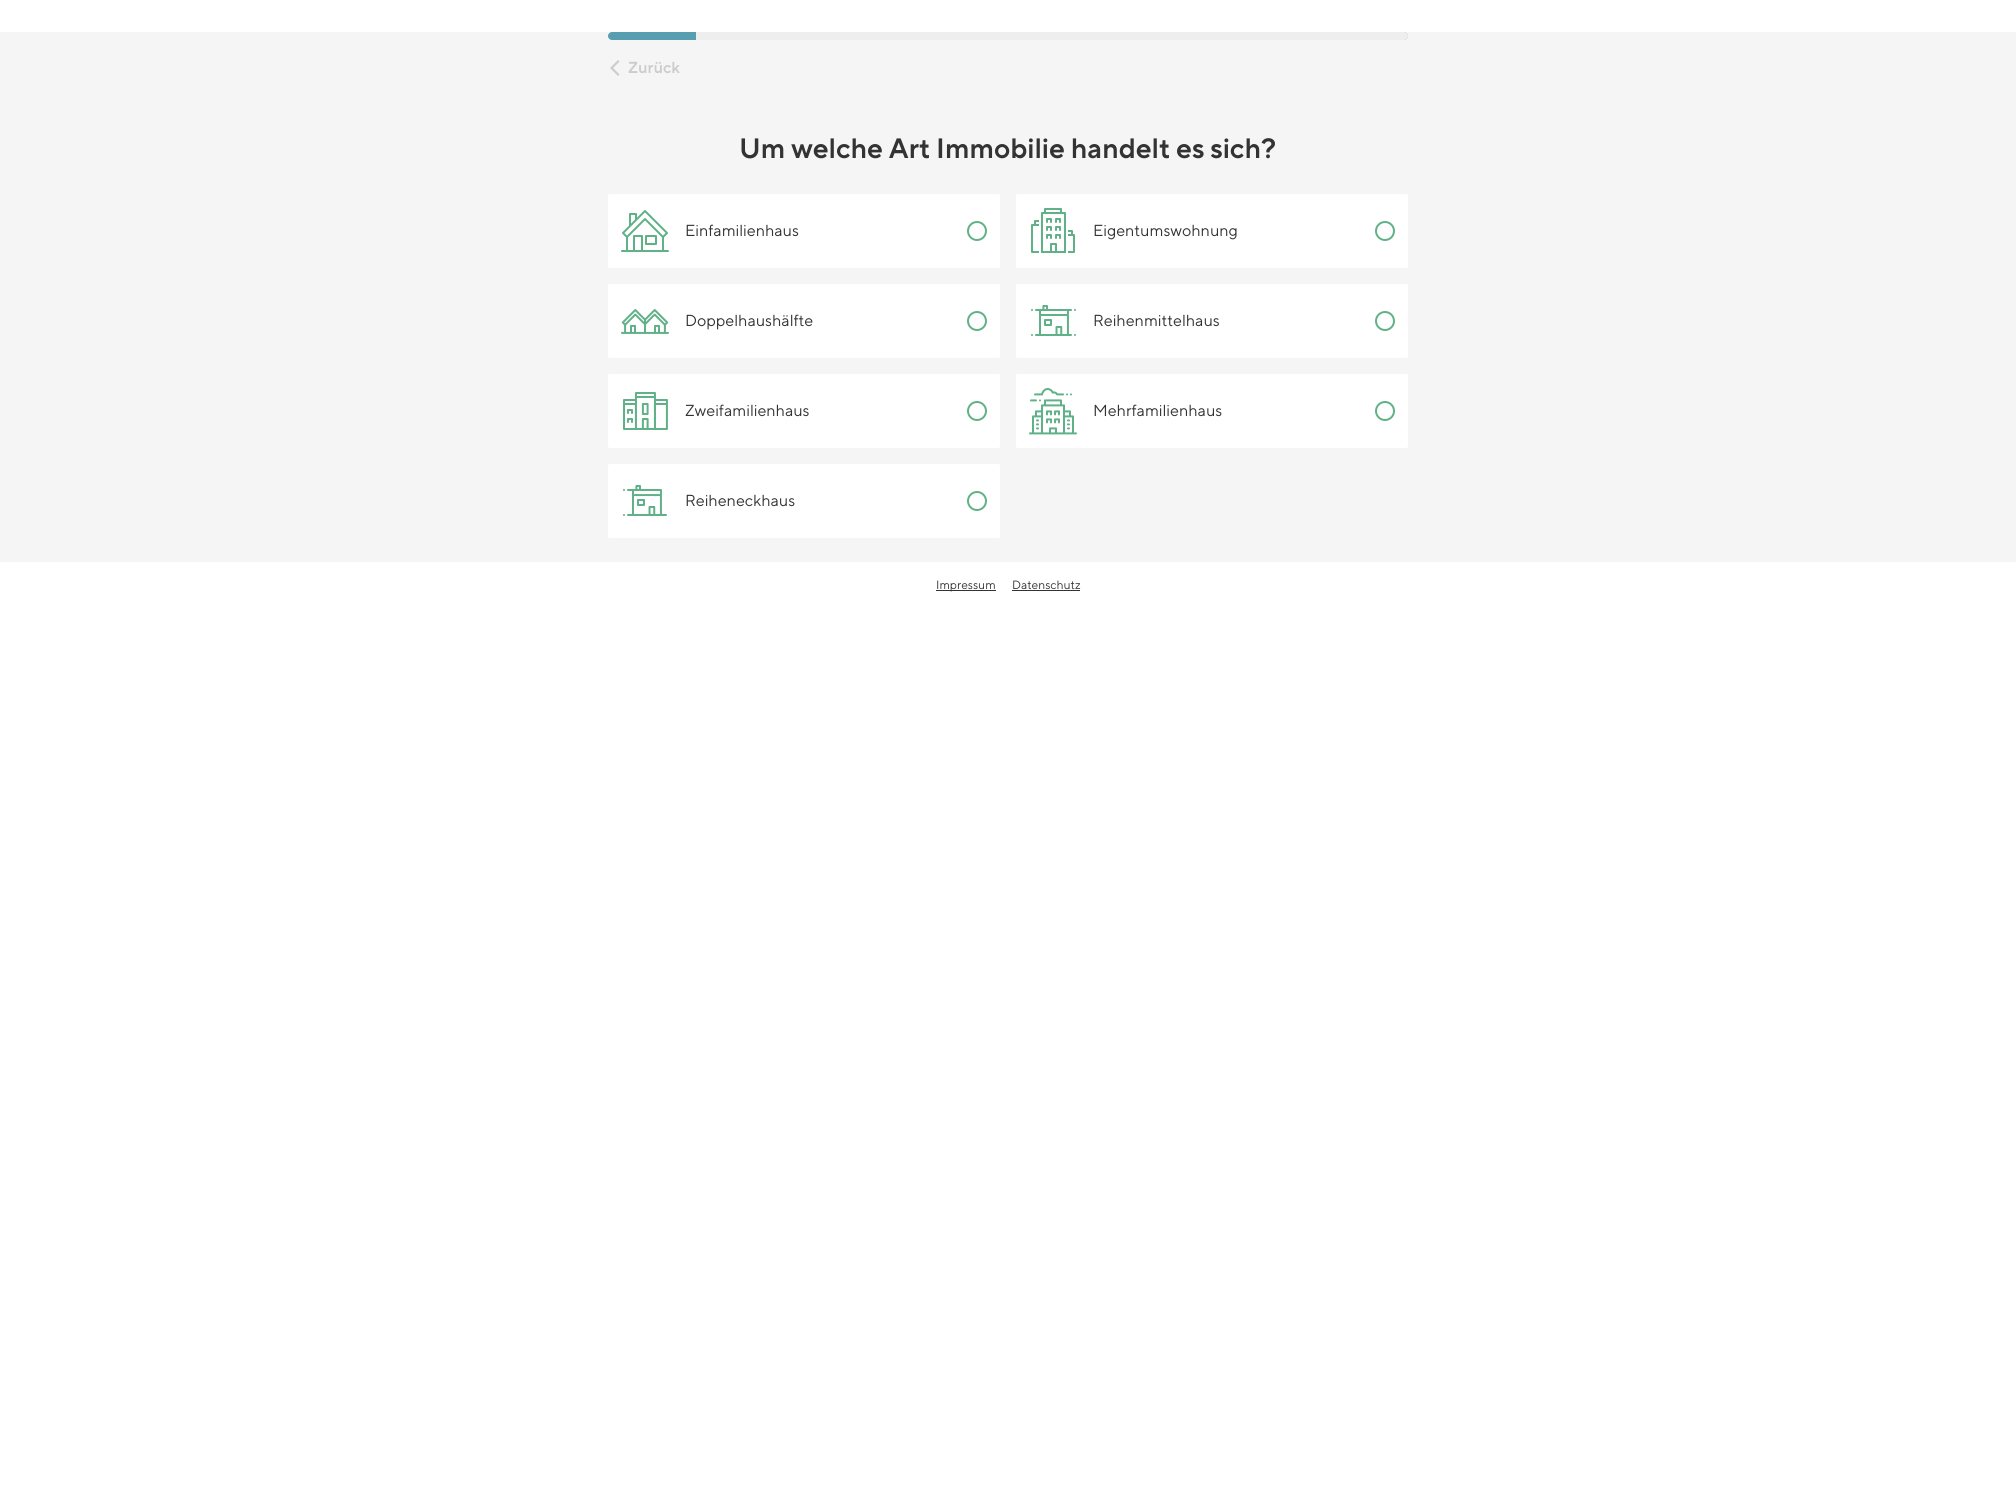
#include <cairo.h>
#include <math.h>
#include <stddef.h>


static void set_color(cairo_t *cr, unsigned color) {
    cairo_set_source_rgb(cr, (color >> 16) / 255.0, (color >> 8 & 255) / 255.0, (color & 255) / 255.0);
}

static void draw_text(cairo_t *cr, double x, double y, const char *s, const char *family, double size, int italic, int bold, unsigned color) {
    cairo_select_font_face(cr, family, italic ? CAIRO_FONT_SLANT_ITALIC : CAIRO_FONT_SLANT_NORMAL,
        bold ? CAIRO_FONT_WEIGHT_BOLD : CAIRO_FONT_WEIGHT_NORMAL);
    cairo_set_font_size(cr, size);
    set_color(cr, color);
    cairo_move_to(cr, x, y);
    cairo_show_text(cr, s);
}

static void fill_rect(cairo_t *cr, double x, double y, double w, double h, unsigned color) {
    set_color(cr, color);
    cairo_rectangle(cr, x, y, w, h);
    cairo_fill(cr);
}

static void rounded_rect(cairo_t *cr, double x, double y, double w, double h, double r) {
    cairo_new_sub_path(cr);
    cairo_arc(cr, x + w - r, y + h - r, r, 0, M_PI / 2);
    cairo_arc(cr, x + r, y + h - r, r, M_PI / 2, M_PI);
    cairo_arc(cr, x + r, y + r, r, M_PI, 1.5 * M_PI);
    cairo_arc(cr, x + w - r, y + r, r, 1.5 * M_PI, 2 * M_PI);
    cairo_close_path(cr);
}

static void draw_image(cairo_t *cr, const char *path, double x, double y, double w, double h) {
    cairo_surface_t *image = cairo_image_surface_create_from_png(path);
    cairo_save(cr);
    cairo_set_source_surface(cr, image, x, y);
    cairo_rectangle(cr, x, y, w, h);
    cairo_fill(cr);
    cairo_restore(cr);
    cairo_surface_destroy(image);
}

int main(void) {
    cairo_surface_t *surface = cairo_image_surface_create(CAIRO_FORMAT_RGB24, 2016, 1501);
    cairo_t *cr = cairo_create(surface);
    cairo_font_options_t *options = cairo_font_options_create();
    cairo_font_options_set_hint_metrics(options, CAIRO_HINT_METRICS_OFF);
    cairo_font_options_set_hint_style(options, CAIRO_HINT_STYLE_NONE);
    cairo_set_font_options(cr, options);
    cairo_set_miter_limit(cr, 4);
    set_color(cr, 0xFFFFFF);
    cairo_paint(cr);
    fill_rect(cr, 0, 32, 2016, 530, 0xF5F5F5);
    rounded_rect(cr, 608.5, 32.5, 799, 7, 3.5);
    set_color(cr, 0xB2B2B2);
    cairo_set_line_width(cr, 1);
    cairo_stroke(cr);
    set_color(cr, 0xEEEEEE);
    rounded_rect(cr, 608, 32, 800, 8, 4);
    cairo_fill(cr);
    set_color(cr, 0x579EB0);
    cairo_new_path(cr);
    cairo_move_to(cr, 612, 32);
    cairo_line_to(cr, 696, 32);
    cairo_line_to(cr, 696, 40);
    cairo_line_to(cr, 612, 40);
    cairo_curve_to(cr, 610, 40, 608, 38, 608, 36);
    cairo_curve_to(cr, 608, 34, 610, 32, 612, 32);
    cairo_close_path(cr);
    cairo_fill(cr);
    draw_image(cr, "assets/img1.png", 610, 60, 10, 16);
    draw_text(cr, 628, 73, "Zurück", "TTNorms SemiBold", 16, 0, 0, 0xCCCCCC);
    draw_text(cr, 739, 158, "Um welche Art Immobilie handelt es sich?", "TTNorms SemiBold", 28, 0, 0, 0x333333);
    set_color(cr, 0xFFFFFF);
    rounded_rect(cr, 608, 194, 392, 74, 2);
    cairo_fill(cr);
    draw_image(cr, "assets/img2.png", 621, 210, 48, 42);
    draw_text(cr, 685, 236, "Einfamilienhaus", "TTNorms", 16, 0, 0, 0x333333);
    cairo_new_path(cr);
    cairo_arc(cr, 977, 231, 9, 0, 2 * M_PI);
    set_color(cr, 0x60B187);
    cairo_set_line_width(cr, 2);
    cairo_stroke(cr);
    set_color(cr, 0xFFFFFF);
    rounded_rect(cr, 1016, 194, 392, 74, 2);
    cairo_fill(cr);
    draw_image(cr, "assets/img3.png", 1031, 208, 44, 45);
    draw_text(cr, 1093, 236, "Eigentumswohnung", "TTNorms", 16, 0, 0, 0x333333);
    cairo_new_path(cr);
    cairo_arc(cr, 1385, 231, 9, 0, 2 * M_PI);
    set_color(cr, 0x60B187);
    cairo_stroke(cr);
    set_color(cr, 0xFFFFFF);
    rounded_rect(cr, 608, 284, 392, 74, 2);
    cairo_fill(cr);
    draw_image(cr, "assets/img4.png", 621, 309, 48, 25);
    draw_text(cr, 685, 326, "Doppelhaushälfte", "TTNorms", 16, 0, 0, 0x333333);
    cairo_new_path(cr);
    cairo_arc(cr, 977, 321, 9, 0, 2 * M_PI);
    set_color(cr, 0x60B187);
    cairo_stroke(cr);
    set_color(cr, 0xFFFFFF);
    rounded_rect(cr, 1016, 284, 392, 74, 2);
    cairo_fill(cr);
    draw_image(cr, "assets/img5.png", 1031, 305, 45, 31);
    draw_text(cr, 1093, 326, "Reihenmittelhaus", "TTNorms", 16, 0, 0, 0x333333);
    cairo_new_path(cr);
    cairo_arc(cr, 1385, 321, 9, 0, 2 * M_PI);
    set_color(cr, 0x60B187);
    cairo_stroke(cr);
    set_color(cr, 0xFFFFFF);
    rounded_rect(cr, 608, 374, 392, 74, 2);
    cairo_fill(cr);
    draw_image(cr, "assets/img6.png", 623, 392, 45, 38);
    draw_text(cr, 685, 416, "Zweifamilienhaus", "TTNorms", 16, 0, 0, 0x333333);
    cairo_new_path(cr);
    cairo_arc(cr, 977, 411, 9, 0, 2 * M_PI);
    set_color(cr, 0x60B187);
    cairo_stroke(cr);
    set_color(cr, 0xFFFFFF);
    rounded_rect(cr, 1016, 374, 392, 74, 2);
    cairo_fill(cr);
    draw_image(cr, "assets/img7.png", 1029, 388, 48, 47);
    draw_text(cr, 1093, 416, "Mehrfamilienhaus", "TTNorms", 16, 0, 0, 0x333333);
    cairo_new_path(cr);
    cairo_arc(cr, 1385, 411, 9, 0, 2 * M_PI);
    set_color(cr, 0x60B187);
    cairo_stroke(cr);
    set_color(cr, 0xFFFFFF);
    rounded_rect(cr, 608, 464, 392, 74, 2);
    cairo_fill(cr);
    draw_image(cr, "assets/img8.png", 623, 485, 44, 31);
    draw_text(cr, 685, 506, "Reiheneckhaus", "TTNorms", 16, 0, 0, 0x333333);
    cairo_new_path(cr);
    cairo_arc(cr, 977, 501, 9, 0, 2 * M_PI);
    set_color(cr, 0x60B187);
    cairo_stroke(cr);
    fill_rect(cr, 936, 590, 60, 1, 0x333333);
    draw_text(cr, 936, 589, "Impressum", "TTNorms", 12, 0, 0, 0x333333);
    draw_text(cr, 1012, 589, "Datenschutz", "TTNorms", 12, 0, 0, 0x333333);
    fill_rect(cr, 1012, 590, 68, 1, 0x333333);
    cairo_surface_write_to_png(surface, "output.png");
    cairo_font_options_destroy(options);
    cairo_destroy(cr);
    cairo_surface_destroy(surface);
    return 0;
}
